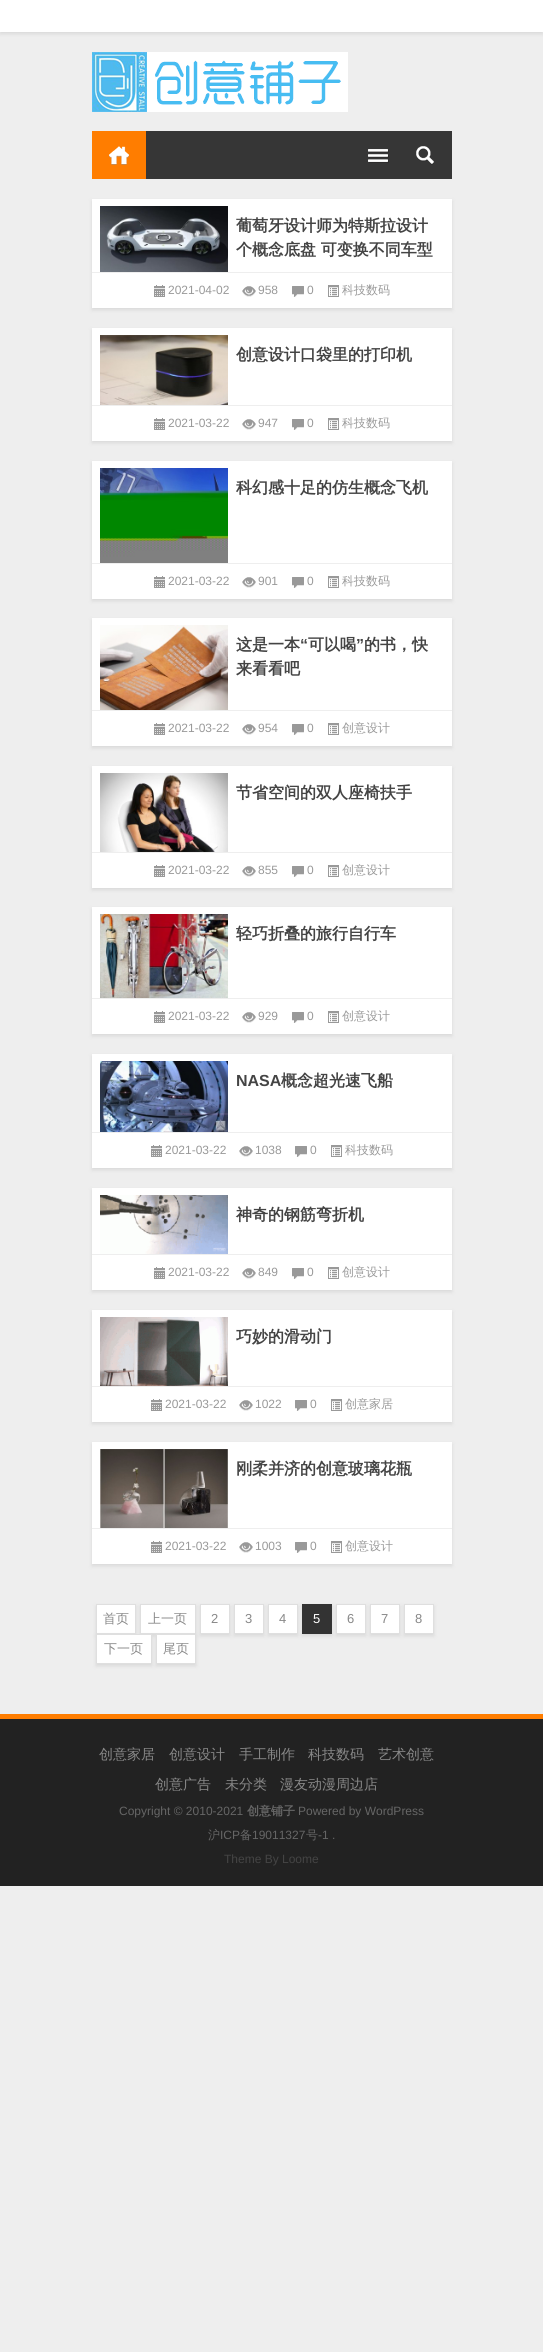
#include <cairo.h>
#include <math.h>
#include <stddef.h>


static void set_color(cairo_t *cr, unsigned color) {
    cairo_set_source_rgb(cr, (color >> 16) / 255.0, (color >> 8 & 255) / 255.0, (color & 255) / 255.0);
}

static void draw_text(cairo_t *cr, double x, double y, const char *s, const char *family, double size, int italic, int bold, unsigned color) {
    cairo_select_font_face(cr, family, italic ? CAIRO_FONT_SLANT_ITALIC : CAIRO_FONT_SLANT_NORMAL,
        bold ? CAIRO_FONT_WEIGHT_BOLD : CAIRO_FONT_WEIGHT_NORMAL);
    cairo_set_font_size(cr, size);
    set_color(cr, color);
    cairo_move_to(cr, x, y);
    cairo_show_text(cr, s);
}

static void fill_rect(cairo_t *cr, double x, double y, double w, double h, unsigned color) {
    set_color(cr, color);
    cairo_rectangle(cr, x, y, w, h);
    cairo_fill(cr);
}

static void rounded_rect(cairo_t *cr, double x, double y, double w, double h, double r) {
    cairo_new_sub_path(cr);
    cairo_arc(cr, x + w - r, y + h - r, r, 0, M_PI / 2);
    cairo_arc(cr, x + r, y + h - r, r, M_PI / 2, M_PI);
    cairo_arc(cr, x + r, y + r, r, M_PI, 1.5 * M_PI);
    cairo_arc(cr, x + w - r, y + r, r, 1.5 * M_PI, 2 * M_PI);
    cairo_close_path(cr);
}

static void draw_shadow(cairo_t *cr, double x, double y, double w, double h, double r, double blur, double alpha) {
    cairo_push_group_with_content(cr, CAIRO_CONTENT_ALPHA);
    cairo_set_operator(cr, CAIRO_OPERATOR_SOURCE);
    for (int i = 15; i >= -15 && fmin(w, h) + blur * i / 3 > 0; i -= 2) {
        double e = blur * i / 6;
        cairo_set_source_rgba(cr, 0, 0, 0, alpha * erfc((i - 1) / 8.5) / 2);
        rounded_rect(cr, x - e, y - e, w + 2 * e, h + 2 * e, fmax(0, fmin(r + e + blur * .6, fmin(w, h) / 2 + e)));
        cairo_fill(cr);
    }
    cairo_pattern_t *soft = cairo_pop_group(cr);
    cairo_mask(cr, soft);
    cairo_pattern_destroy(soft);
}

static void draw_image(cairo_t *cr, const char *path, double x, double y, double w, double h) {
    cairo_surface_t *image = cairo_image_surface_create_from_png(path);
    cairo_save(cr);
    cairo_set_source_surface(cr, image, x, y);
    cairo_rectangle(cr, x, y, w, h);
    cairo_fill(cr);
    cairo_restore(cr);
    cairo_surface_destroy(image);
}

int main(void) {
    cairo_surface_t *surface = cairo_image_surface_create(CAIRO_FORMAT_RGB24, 543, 2352);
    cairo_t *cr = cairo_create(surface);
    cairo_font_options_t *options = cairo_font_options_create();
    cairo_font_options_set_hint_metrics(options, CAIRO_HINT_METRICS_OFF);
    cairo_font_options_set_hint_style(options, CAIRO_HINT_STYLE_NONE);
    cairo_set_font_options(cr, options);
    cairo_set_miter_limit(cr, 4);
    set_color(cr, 0xEEEEEE);
    cairo_paint(cr);
    set_color(cr, 0xD9D9D9);
    draw_shadow(cr, 0, 2, 543, 32, 0, 2, 1);
    fill_rect(cr, 0, 0, 543, 32, 0xFFFFFF);
    draw_image(cr, "assets/img1.png", 92, 52, 256, 60);
    fill_rect(cr, 146, 131, 306, 48, 0x363636);
    fill_rect(cr, 92, 131, 54, 48, 0xFF7D00);
    draw_image(cr, "assets/img2.png", 109, 146, 20, 19);
    draw_image(cr, "assets/img3.png", 368, 149, 21, 14);
    draw_image(cr, "assets/img4.png", 416, 146, 18, 19);
    set_color(cr, 0xD9D9D9);
    draw_shadow(cr, 92, 201, 360, 109, 0, 2, 1);
    fill_rect(cr, 92, 199, 360, 109, 0xFFFFFF);
    draw_image(cr, "assets/img5.png", 100, 206, 128, 66);
    draw_text(cr, 236, 231, "葡萄牙设计师为特斯拉设计", "WenQuanYi Zen Hei", 16, 0, 1, 0x444444);
    draw_text(cr, 236, 255, "个概念底盘 可变换不同车型", "WenQuanYi Zen Hei", 16, 0, 1, 0x444444);
    fill_rect(cr, 92, 272, 360, 1, 0xEEEEEE);
    draw_image(cr, "assets/img6.png", 154, 285, 11, 12);
    draw_text(cr, 168, 294, "2021-04-02", "Liberation Sans", 12, 0, 0, 0x999999);
    draw_image(cr, "assets/img7.png", 242, 286, 14, 11);
    draw_text(cr, 258, 294, "958", "Liberation Sans", 12, 0, 0, 0x999999);
    draw_image(cr, "assets/img8.png", 292, 286, 12, 11);
    draw_text(cr, 307, 294, "0", "Liberation Sans", 12, 0, 0, 0x999999);
    draw_image(cr, "assets/img9.png", 328, 285, 11, 12);
    draw_text(cr, 342, 294, "科技数码", "WenQuanYi Zen Hei Medium", 12, 0, 0, 0x999999);
    set_color(cr, 0xD9D9D9);
    draw_shadow(cr, 92, 330, 360, 113, 0, 2, 1);
    fill_rect(cr, 92, 328, 360, 113, 0xFFFFFF);
    draw_image(cr, "assets/img10.png", 100, 335, 128, 70);
    draw_text(cr, 236, 360, "创意设计口袋里的打印机", "WenQuanYi Zen Hei", 16, 0, 1, 0x444444);
    fill_rect(cr, 92, 405, 360, 1, 0xEEEEEE);
    draw_image(cr, "assets/img6.png", 154, 418, 11, 12);
    draw_text(cr, 168, 427, "2021-03-22", "Liberation Sans", 12, 0, 0, 0x999999);
    draw_image(cr, "assets/img7.png", 242, 419, 14, 11);
    draw_text(cr, 258, 427, "947", "Liberation Sans", 12, 0, 0, 0x999999);
    draw_image(cr, "assets/img8.png", 292, 419, 12, 11);
    draw_text(cr, 307, 427, "0", "Liberation Sans", 12, 0, 0, 0x999999);
    draw_image(cr, "assets/img9.png", 328, 418, 11, 12);
    draw_text(cr, 342, 427, "科技数码", "WenQuanYi Zen Hei Medium", 12, 0, 0, 0x999999);
    set_color(cr, 0xD9D9D9);
    draw_shadow(cr, 92, 463, 360, 138, 0, 2, 1);
    fill_rect(cr, 92, 461, 360, 138, 0xFFFFFF);
    draw_image(cr, "assets/img11.png", 100, 468, 128, 95);
    draw_text(cr, 236, 493, "科幻感十足的仿生概念飞机", "WenQuanYi Zen Hei", 16, 0, 1, 0x444444);
    fill_rect(cr, 92, 563, 360, 1, 0xEEEEEE);
    draw_image(cr, "assets/img6.png", 154, 576, 11, 12);
    draw_text(cr, 168, 585, "2021-03-22", "Liberation Sans", 12, 0, 0, 0x999999);
    draw_image(cr, "assets/img7.png", 242, 577, 14, 11);
    draw_text(cr, 258, 585, "901", "Liberation Sans", 12, 0, 0, 0x999999);
    draw_image(cr, "assets/img8.png", 292, 577, 12, 11);
    draw_text(cr, 307, 585, "0", "Liberation Sans", 12, 0, 0, 0x999999);
    draw_image(cr, "assets/img9.png", 328, 576, 11, 12);
    draw_text(cr, 342, 585, "科技数码", "WenQuanYi Zen Hei Medium", 12, 0, 0, 0x999999);
    set_color(cr, 0xD9D9D9);
    draw_shadow(cr, 92, 620, 360, 128, 0, 2, 1);
    fill_rect(cr, 92, 618, 360, 128, 0xFFFFFF);
    draw_image(cr, "assets/img12.png", 100, 625, 128, 85);
    draw_text(cr, 236, 650, "这是一本", "WenQuanYi Zen Hei", 16, 0, 1, 0x444444);
    draw_text(cr, 300, 650, "“", "Liberation Sans", 16, 0, 1, 0x444444);
    draw_text(cr, 308, 650, "可以喝", "WenQuanYi Zen Hei", 16, 0, 1, 0x444444);
    draw_text(cr, 356, 650, "”", "Liberation Sans", 16, 0, 1, 0x444444);
    draw_text(cr, 364, 650, "的书，快", "WenQuanYi Zen Hei", 16, 0, 1, 0x444444);
    draw_text(cr, 236, 674, "来看看吧", "WenQuanYi Zen Hei", 16, 0, 1, 0x444444);
    fill_rect(cr, 92, 710, 360, 1, 0xEEEEEE);
    draw_image(cr, "assets/img6.png", 154, 723, 11, 12);
    draw_text(cr, 168, 732, "2021-03-22", "Liberation Sans", 12, 0, 0, 0x999999);
    draw_image(cr, "assets/img7.png", 242, 724, 14, 11);
    draw_text(cr, 258, 732, "954", "Liberation Sans", 12, 0, 0, 0x999999);
    draw_image(cr, "assets/img8.png", 292, 724, 12, 11);
    draw_text(cr, 307, 732, "0", "Liberation Sans", 12, 0, 0, 0x999999);
    draw_image(cr, "assets/img9.png", 328, 723, 11, 12);
    draw_text(cr, 342, 732, "创意设计", "WenQuanYi Zen Hei Medium", 12, 0, 0, 0x999999);
    set_color(cr, 0xD9D9D9);
    draw_shadow(cr, 92, 768, 360, 122, 0, 2, 1);
    fill_rect(cr, 92, 766, 360, 122, 0xFFFFFF);
    draw_image(cr, "assets/img13.png", 100, 773, 128, 79);
    draw_text(cr, 236, 798, "节省空间的双人座椅扶手", "WenQuanYi Zen Hei", 16, 0, 1, 0x444444);
    fill_rect(cr, 92, 852, 360, 1, 0xEEEEEE);
    draw_image(cr, "assets/img6.png", 154, 865, 11, 12);
    draw_text(cr, 168, 874, "2021-03-22", "Liberation Sans", 12, 0, 0, 0x999999);
    draw_image(cr, "assets/img7.png", 242, 866, 14, 11);
    draw_text(cr, 258, 874, "855", "Liberation Sans", 12, 0, 0, 0x999999);
    draw_image(cr, "assets/img8.png", 292, 866, 12, 11);
    draw_text(cr, 307, 874, "0", "Liberation Sans", 12, 0, 0, 0x999999);
    draw_image(cr, "assets/img9.png", 328, 865, 11, 12);
    draw_text(cr, 342, 874, "创意设计", "WenQuanYi Zen Hei Medium", 12, 0, 0, 0x999999);
    set_color(cr, 0xD9D9D9);
    draw_shadow(cr, 92, 909, 360, 127, 0, 2, 1);
    fill_rect(cr, 92, 907, 360, 127, 0xFFFFFF);
    draw_image(cr, "assets/img14.png", 100, 914, 128, 84);
    draw_text(cr, 236, 939, "轻巧折叠的旅行自行车", "WenQuanYi Zen Hei", 16, 0, 1, 0x444444);
    fill_rect(cr, 92, 998, 360, 1, 0xEEEEEE);
    draw_image(cr, "assets/img6.png", 154, 1011, 11, 12);
    draw_text(cr, 168, 1020, "2021-03-22", "Liberation Sans", 12, 0, 0, 0x999999);
    draw_image(cr, "assets/img7.png", 242, 1012, 14, 11);
    draw_text(cr, 258, 1020, "929", "Liberation Sans", 12, 0, 0, 0x999999);
    draw_image(cr, "assets/img8.png", 292, 1012, 12, 11);
    draw_text(cr, 307, 1020, "0", "Liberation Sans", 12, 0, 0, 0x999999);
    draw_image(cr, "assets/img9.png", 328, 1011, 11, 12);
    draw_text(cr, 342, 1020, "创意设计", "WenQuanYi Zen Hei Medium", 12, 0, 0, 0x999999);
    set_color(cr, 0xD9D9D9);
    draw_shadow(cr, 92, 1056, 360, 114, 0, 2, 1);
    fill_rect(cr, 92, 1054, 360, 114, 0xFFFFFF);
    draw_image(cr, "assets/img15.png", 100, 1061, 128, 71);
    draw_text(cr, 236, 1086, "NASA", "Liberation Sans", 16, 0, 1, 0x444444);
    draw_text(cr, 281, 1086, "概念超光速飞船", "WenQuanYi Zen Hei", 16, 0, 1, 0x444444);
    fill_rect(cr, 92, 1132, 360, 1, 0xEEEEEE);
    draw_image(cr, "assets/img6.png", 151, 1145, 11, 12);
    draw_text(cr, 165, 1154, "2021-03-22", "Liberation Sans", 12, 0, 0, 0x999999);
    draw_image(cr, "assets/img7.png", 239, 1146, 14, 11);
    draw_text(cr, 255, 1154, "1038", "Liberation Sans", 12, 0, 0, 0x999999);
    draw_image(cr, "assets/img8.png", 295, 1146, 12, 11);
    draw_text(cr, 310, 1154, "0", "Liberation Sans", 12, 0, 0, 0x999999);
    draw_image(cr, "assets/img9.png", 331, 1145, 11, 12);
    draw_text(cr, 345, 1154, "科技数码", "WenQuanYi Zen Hei Medium", 12, 0, 0, 0x999999);
    set_color(cr, 0xD9D9D9);
    draw_shadow(cr, 92, 1190, 360, 102, 0, 2, 1);
    fill_rect(cr, 92, 1188, 360, 102, 0xFFFFFF);
    draw_image(cr, "assets/img16.png", 100, 1195, 128, 59);
    draw_text(cr, 236, 1220, "神奇的钢筋弯折机", "WenQuanYi Zen Hei", 16, 0, 1, 0x444444);
    fill_rect(cr, 92, 1254, 360, 1, 0xEEEEEE);
    draw_image(cr, "assets/img6.png", 154, 1267, 11, 12);
    draw_text(cr, 168, 1276, "2021-03-22", "Liberation Sans", 12, 0, 0, 0x999999);
    draw_image(cr, "assets/img7.png", 242, 1268, 14, 11);
    draw_text(cr, 258, 1276, "849", "Liberation Sans", 12, 0, 0, 0x999999);
    draw_image(cr, "assets/img8.png", 292, 1268, 12, 11);
    draw_text(cr, 307, 1276, "0", "Liberation Sans", 12, 0, 0, 0x999999);
    draw_image(cr, "assets/img9.png", 328, 1267, 11, 12);
    draw_text(cr, 342, 1276, "创意设计", "WenQuanYi Zen Hei Medium", 12, 0, 0, 0x999999);
    set_color(cr, 0xD9D9D9);
    draw_shadow(cr, 92, 1312, 360, 112, 0, 2, 1);
    fill_rect(cr, 92, 1310, 360, 112, 0xFFFFFF);
    draw_image(cr, "assets/img17.png", 100, 1317, 128, 69);
    draw_text(cr, 236, 1342, "巧妙的滑动门", "WenQuanYi Zen Hei", 16, 0, 1, 0x444444);
    fill_rect(cr, 92, 1386, 360, 1, 0xEEEEEE);
    draw_image(cr, "assets/img6.png", 151, 1399, 11, 12);
    draw_text(cr, 165, 1408, "2021-03-22", "Liberation Sans", 12, 0, 0, 0x999999);
    draw_image(cr, "assets/img7.png", 239, 1400, 14, 11);
    draw_text(cr, 255, 1408, "1022", "Liberation Sans", 12, 0, 0, 0x999999);
    draw_image(cr, "assets/img8.png", 295, 1400, 12, 11);
    draw_text(cr, 310, 1408, "0", "Liberation Sans", 12, 0, 0, 0x999999);
    draw_image(cr, "assets/img9.png", 331, 1399, 11, 12);
    draw_text(cr, 345, 1408, "创意家居", "WenQuanYi Zen Hei Medium", 12, 0, 0, 0x999999);
    set_color(cr, 0xD9D9D9);
    draw_shadow(cr, 92, 1444, 360, 122, 0, 2, 1);
    fill_rect(cr, 92, 1442, 360, 122, 0xFFFFFF);
    draw_image(cr, "assets/img18.png", 100, 1449, 128, 79);
    draw_text(cr, 236, 1474, "刚柔并济的创意玻璃花瓶", "WenQuanYi Zen Hei", 16, 0, 1, 0x444444);
    fill_rect(cr, 92, 1528, 360, 1, 0xEEEEEE);
    draw_image(cr, "assets/img6.png", 151, 1541, 11, 12);
    draw_text(cr, 165, 1550, "2021-03-22", "Liberation Sans", 12, 0, 0, 0x999999);
    draw_image(cr, "assets/img7.png", 239, 1542, 14, 11);
    draw_text(cr, 255, 1550, "1003", "Liberation Sans", 12, 0, 0, 0x999999);
    draw_image(cr, "assets/img8.png", 295, 1542, 12, 11);
    draw_text(cr, 310, 1550, "0", "Liberation Sans", 12, 0, 0, 0x999999);
    draw_image(cr, "assets/img9.png", 331, 1541, 11, 12);
    draw_text(cr, 345, 1550, "创意设计", "WenQuanYi Zen Hei Medium", 12, 0, 0, 0x999999);
    set_color(cr, 0xD9D9D9);
    draw_shadow(cr, 96, 1606, 40, 30, 0, 2, 1);
    set_color(cr, 0xFFFFFF);
    cairo_rectangle(cr, 96.5, 1604.5, 39, 29);
    cairo_fill_preserve(cr);
    set_color(cr, 0xDFDFDF);
    cairo_set_line_width(cr, 1);
    cairo_stroke(cr);
    draw_text(cr, 103, 1623, "首页", "WenQuanYi Zen Hei Medium", 13, 0, 0, 0x888888);
    set_color(cr, 0xD9D9D9);
    draw_shadow(cr, 140, 1606, 56, 30, 0, 2, 1);
    set_color(cr, 0xFFFFFF);
    cairo_rectangle(cr, 140.5, 1604.5, 55, 29);
    cairo_fill_preserve(cr);
    set_color(cr, 0xDFDFDF);
    cairo_stroke(cr);
    draw_text(cr, 148, 1623, "上一页", "WenQuanYi Zen Hei Medium", 13, 0, 0, 0x888888);
    set_color(cr, 0xD9D9D9);
    draw_shadow(cr, 200, 1606, 30, 30, 0, 2, 1);
    set_color(cr, 0xFFFFFF);
    cairo_rectangle(cr, 200.5, 1604.5, 29, 29);
    cairo_fill_preserve(cr);
    set_color(cr, 0xDFDFDF);
    cairo_stroke(cr);
    draw_text(cr, 211, 1623, "2", "Liberation Sans", 13, 0, 0, 0x888888);
    set_color(cr, 0xD9D9D9);
    draw_shadow(cr, 234, 1606, 30, 30, 0, 2, 1);
    set_color(cr, 0xFFFFFF);
    cairo_rectangle(cr, 234.5, 1604.5, 29, 29);
    cairo_fill_preserve(cr);
    set_color(cr, 0xDFDFDF);
    cairo_stroke(cr);
    draw_text(cr, 245, 1623, "3", "Liberation Sans", 13, 0, 0, 0x888888);
    set_color(cr, 0xD9D9D9);
    draw_shadow(cr, 268, 1606, 30, 30, 0, 2, 1);
    set_color(cr, 0xFFFFFF);
    cairo_rectangle(cr, 268.5, 1604.5, 29, 29);
    cairo_fill_preserve(cr);
    set_color(cr, 0xDFDFDF);
    cairo_stroke(cr);
    draw_text(cr, 279, 1623, "4", "Liberation Sans", 13, 0, 0, 0x888888);
    set_color(cr, 0xD9D9D9);
    draw_shadow(cr, 302, 1606, 30, 30, 0, 2, 1);
    fill_rect(cr, 302, 1604, 30, 30, 0x333333);
    draw_text(cr, 313, 1623, "5", "Liberation Sans", 13, 0, 0, 0xFFFFFF);
    set_color(cr, 0xD9D9D9);
    draw_shadow(cr, 336, 1606, 30, 30, 0, 2, 1);
    set_color(cr, 0xFFFFFF);
    cairo_rectangle(cr, 336.5, 1604.5, 29, 29);
    cairo_fill_preserve(cr);
    set_color(cr, 0xDFDFDF);
    cairo_stroke(cr);
    draw_text(cr, 347, 1623, "6", "Liberation Sans", 13, 0, 0, 0x888888);
    set_color(cr, 0xD9D9D9);
    draw_shadow(cr, 370, 1606, 30, 30, 0, 2, 1);
    set_color(cr, 0xFFFFFF);
    cairo_rectangle(cr, 370.5, 1604.5, 29, 29);
    cairo_fill_preserve(cr);
    set_color(cr, 0xDFDFDF);
    cairo_stroke(cr);
    draw_text(cr, 381, 1623, "7", "Liberation Sans", 13, 0, 0, 0x888888);
    set_color(cr, 0xD9D9D9);
    draw_shadow(cr, 404, 1606, 30, 30, 0, 2, 1);
    set_color(cr, 0xFFFFFF);
    cairo_rectangle(cr, 404.5, 1604.5, 29, 29);
    cairo_fill_preserve(cr);
    set_color(cr, 0xDFDFDF);
    cairo_stroke(cr);
    draw_text(cr, 415, 1623, "8", "Liberation Sans", 13, 0, 0, 0x888888);
    set_color(cr, 0xD9D9D9);
    draw_shadow(cr, 96, 1636, 56, 30, 0, 2, 1);
    set_color(cr, 0xFFFFFF);
    cairo_rectangle(cr, 96.5, 1634.5, 55, 29);
    cairo_fill_preserve(cr);
    set_color(cr, 0xDFDFDF);
    cairo_stroke(cr);
    draw_text(cr, 104, 1653, "下一页", "WenQuanYi Zen Hei Medium", 13, 0, 0, 0x888888);
    set_color(cr, 0xD9D9D9);
    draw_shadow(cr, 156, 1636, 40, 30, 0, 2, 1);
    set_color(cr, 0xFFFFFF);
    cairo_rectangle(cr, 156.5, 1634.5, 39, 29);
    cairo_fill_preserve(cr);
    set_color(cr, 0xDFDFDF);
    cairo_stroke(cr);
    draw_text(cr, 163, 1653, "尾页", "WenQuanYi Zen Hei Medium", 13, 0, 0, 0x888888);
    fill_rect(cr, 0, 1719, 543, 167, 0x222222);
    fill_rect(cr, 0, 1714, 543, 5, 0xFF7D00);
    draw_text(cr, 99, 1759, "创意家居", "WenQuanYi Zen Hei Medium", 14, 0, 0, 0x888888);
    draw_text(cr, 169, 1759, "创意设计", "WenQuanYi Zen Hei Medium", 14, 0, 0, 0x888888);
    draw_text(cr, 239, 1759, "手工制作", "WenQuanYi Zen Hei Medium", 14, 0, 0, 0x888888);
    draw_text(cr, 308, 1759, "科技数码", "WenQuanYi Zen Hei Medium", 14, 0, 0, 0x888888);
    draw_text(cr, 378, 1759, "艺术创意", "WenQuanYi Zen Hei Medium", 14, 0, 0, 0x888888);
    draw_text(cr, 155, 1789, "创意广告", "WenQuanYi Zen Hei Medium", 14, 0, 0, 0x888888);
    draw_text(cr, 225, 1789, "未分类", "WenQuanYi Zen Hei Medium", 14, 0, 0, 0x888888);
    draw_text(cr, 280, 1789, "漫友动漫周边店", "WenQuanYi Zen Hei Medium", 14, 0, 0, 0x888888);
    draw_text(cr, 119, 1815, "Copyright © 2010-2021", "Liberation Sans", 12, 0, 0, 0x666666);
    draw_text(cr, 247, 1815, "创意铺子", "WenQuanYi Zen Hei", 12, 0, 1, 0x666666);
    draw_text(cr, 298, 1815, "Powered by WordPress", "Liberation Sans", 12, 0, 0, 0x666666);
    draw_text(cr, 208, 1839, "沪", "WenQuanYi Zen Hei Medium", 12, 0, 0, 0x666666);
    draw_text(cr, 220, 1839, "ICP", "Liberation Sans", 12, 0, 0, 0x666666);
    draw_text(cr, 240, 1839, "备", "WenQuanYi Zen Hei Medium", 12, 0, 0, 0x666666);
    draw_text(cr, 252, 1839, "19011327", "Liberation Sans", 12, 0, 0, 0x666666);
    draw_text(cr, 306, 1839, "号", "WenQuanYi Zen Hei Medium", 12, 0, 0, 0x666666);
    draw_text(cr, 318, 1839, "-1 .", "Liberation Sans", 12, 0, 0, 0x666666);
    draw_text(cr, 224, 1863, "Theme By Loome", "Liberation Sans", 12, 0, 0, 0x444444);
    cairo_surface_write_to_png(surface, "output.png");
    cairo_font_options_destroy(options);
    cairo_destroy(cr);
    cairo_surface_destroy(surface);
    return 0;
}
